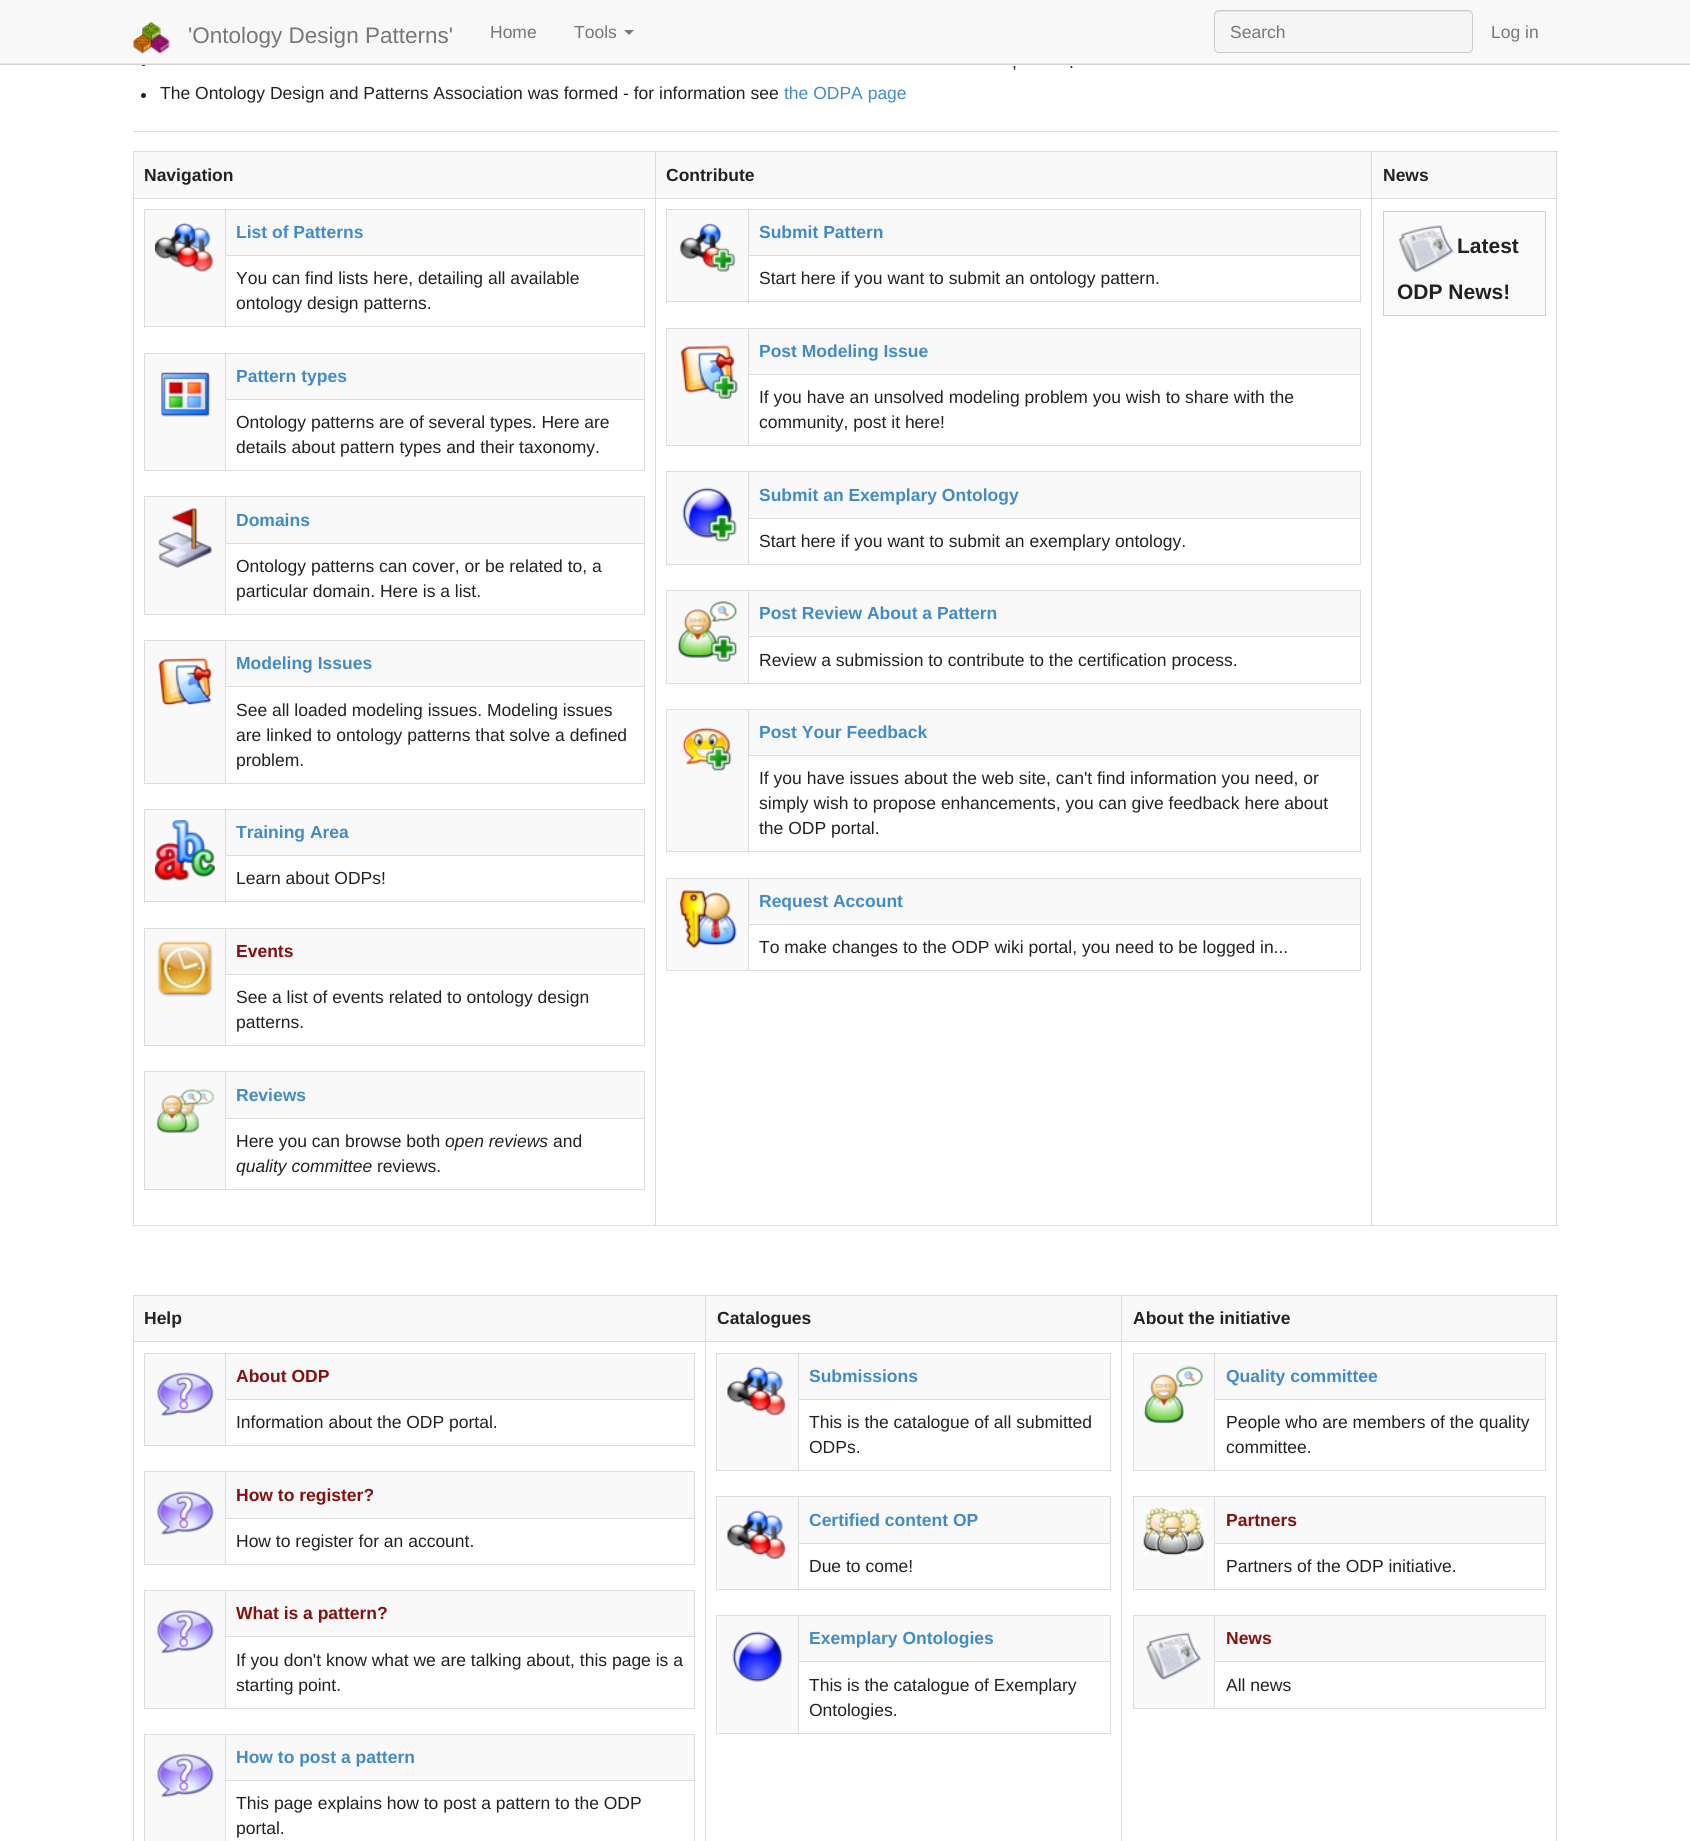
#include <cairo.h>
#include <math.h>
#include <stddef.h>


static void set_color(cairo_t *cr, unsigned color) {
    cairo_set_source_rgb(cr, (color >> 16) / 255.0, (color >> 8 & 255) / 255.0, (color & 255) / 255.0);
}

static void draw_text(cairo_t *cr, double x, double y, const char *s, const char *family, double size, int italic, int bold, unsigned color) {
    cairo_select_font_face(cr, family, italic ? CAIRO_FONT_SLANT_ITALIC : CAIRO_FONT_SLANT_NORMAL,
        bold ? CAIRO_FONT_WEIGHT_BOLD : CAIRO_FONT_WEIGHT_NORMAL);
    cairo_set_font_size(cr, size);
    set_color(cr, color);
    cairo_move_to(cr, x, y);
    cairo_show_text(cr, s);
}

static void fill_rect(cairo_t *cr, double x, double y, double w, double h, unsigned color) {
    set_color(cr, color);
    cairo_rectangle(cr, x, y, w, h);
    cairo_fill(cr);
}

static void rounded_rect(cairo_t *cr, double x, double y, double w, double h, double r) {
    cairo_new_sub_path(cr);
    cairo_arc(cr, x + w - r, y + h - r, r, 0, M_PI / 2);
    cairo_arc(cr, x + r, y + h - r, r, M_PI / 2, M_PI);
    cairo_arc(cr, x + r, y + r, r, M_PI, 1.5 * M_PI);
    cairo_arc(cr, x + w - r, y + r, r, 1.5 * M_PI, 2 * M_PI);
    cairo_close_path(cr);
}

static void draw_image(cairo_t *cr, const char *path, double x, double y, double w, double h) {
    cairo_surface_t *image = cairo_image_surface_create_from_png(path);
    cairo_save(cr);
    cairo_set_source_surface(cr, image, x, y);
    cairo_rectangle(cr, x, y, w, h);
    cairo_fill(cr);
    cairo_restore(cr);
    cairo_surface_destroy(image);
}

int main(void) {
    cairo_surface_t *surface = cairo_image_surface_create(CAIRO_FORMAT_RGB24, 1690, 1841);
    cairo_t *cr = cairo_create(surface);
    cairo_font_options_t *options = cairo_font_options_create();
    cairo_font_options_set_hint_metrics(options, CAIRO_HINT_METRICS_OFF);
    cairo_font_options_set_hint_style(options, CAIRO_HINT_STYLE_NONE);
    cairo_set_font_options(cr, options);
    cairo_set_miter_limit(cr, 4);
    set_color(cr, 0xFFFFFF);
    cairo_paint(cr);
    set_color(cr, 0x222222);
    cairo_arc(cr, 143.5, 63.5, 2.5, 0, 2 * M_PI);
    cairo_fill(cr);
    fill_rect(cr, 0, 0, 1690, 63, 0xF8F8F8);
    fill_rect(cr, 0, 63, 1690, 1, 0xE7E7E7);
    draw_image(cr, "assets/img1.png", 133, 21, 37, 33);
    draw_text(cr, 188, 43, "'Ontology Design Patterns'", "Liberation Sans", 22.5, 0, 0, 0x777777);
    draw_text(cr, 490, 38, "Home", "Liberation Sans", 17.5, 0, 0, 0x777777);
    draw_text(cr, 574, 38, "Tools", "Liberation Sans", 17.5, 0, 0, 0x777777);
    cairo_new_path(cr);
    cairo_move_to(cr, 624, 30);
    cairo_line_to(cr, 634, 30);
    cairo_line_to(cr, 629, 35);
    cairo_close_path(cr);
    cairo_fill(cr);
    set_color(cr, 0xF5F5F5);
    rounded_rect(cr, 1214, 10, 259, 43, 5);
    cairo_fill(cr);
    set_color(cr, 0xE3E3E3);
    cairo_new_path(cr);
    cairo_move_to(cr, 1219, 12);
    cairo_line_to(cr, 1468, 12);
    cairo_curve_to(cr, 1470, 12, 1471, 14, 1471, 16);
    cairo_line_to(cr, 1471, 15);
    cairo_curve_to(cr, 1471, 13, 1469, 11, 1467, 11);
    cairo_line_to(cr, 1219, 11);
    cairo_curve_to(cr, 1217, 11, 1215, 13, 1215, 15);
    cairo_line_to(cr, 1215, 16);
    cairo_curve_to(cr, 1215, 14, 1217, 12, 1219, 12);
    cairo_close_path(cr);
    cairo_fill(cr);
    rounded_rect(cr, 1214.5, 10.5, 258, 42, 4.5);
    set_color(cr, 0xCCCCCC);
    cairo_set_line_width(cr, 1);
    cairo_stroke(cr);
    draw_text(cr, 1230, 38, "Search", "Liberation Sans", 17.5, 0, 0, 0x777777);
    draw_text(cr, 1491, 38, "Log in", "Liberation Sans", 17.5, 0, 0, 0x777777);
    fill_rect(cr, 0, 64, 1690, 1, 0xD5D5D5);
    draw_text(cr, 1012, 68, ",", "Liberation Sans", 17.5, 0, 0, 0x222222);
    draw_text(cr, 1069, 68, ".", "Liberation Sans", 17.5, 0, 0, 0x222222);
    cairo_new_path(cr);
    cairo_arc(cr, 143.5, 95.5, 2.5, 0, 2 * M_PI);
    cairo_fill(cr);
    draw_text(cr, 160, 99, "The Ontology Design and Patterns Association was formed - for information see", "Liberation Sans", 17.5, 0, 0, 0x222222);
    draw_text(cr, 784, 99, "the ODPA page", "Liberation Sans", 17.5, 0, 0, 0x428BCA);
    fill_rect(cr, 133, 131, 1425, 1, 0xDDDDDD);
    fill_rect(cr, 133, 151, 1425, 1, 0xDDDDDD);
    fill_rect(cr, 656, 152, 902, 46, 0xF9F9F9);
    fill_rect(cr, 1556, 151, 1, 1075, 0xDDDDDD);
    fill_rect(cr, 133, 1225, 1425, 1, 0xDDDDDD);
    fill_rect(cr, 133, 151, 1, 1075, 0xDDDDDD);
    fill_rect(cr, 134, 152, 521, 46, 0xF9F9F9);
    draw_text(cr, 144, 181, "Navigation", "Liberation Sans", 17.5, 0, 1, 0x222222);
    fill_rect(cr, 1371, 198, 187, 1, 0xDDDDDD);
    fill_rect(cr, 1371, 198, 1, 1028, 0xDDDDDD);
    fill_rect(cr, 655, 198, 718, 1, 0xDDDDDD);
    fill_rect(cr, 655, 198, 1, 1028, 0xDDDDDD);
    fill_rect(cr, 133, 198, 523, 1, 0xDDDDDD);
    fill_rect(cr, 655, 151, 1, 48, 0xDDDDDD);
    draw_text(cr, 666, 181, "Contribute", "Liberation Sans", 17.5, 0, 1, 0x222222);
    fill_rect(cr, 1371, 151, 1, 48, 0xDDDDDD);
    draw_text(cr, 1383, 181, "News", "Liberation Sans", 17.5, 0, 1, 0x222222);
    fill_rect(cr, 144, 209, 501, 1, 0xDDDDDD);
    fill_rect(cr, 644, 209, 1, 119, 0xDDDDDD);
    fill_rect(cr, 144, 326, 501, 1, 0xDDDDDD);
    fill_rect(cr, 144, 209, 1, 119, 0xDDDDDD);
    fill_rect(cr, 145, 210, 80, 116, 0xF9F9F9);
    draw_image(cr, "assets/img2.png", 155, 222, 59, 50);
    fill_rect(cr, 226, 210, 418, 45, 0xF9F9F9);
    draw_text(cr, 236, 238, "List of Patterns", "Liberation Sans", 17.5, 0, 1, 0x428BCA);
    fill_rect(cr, 225, 255, 420, 1, 0xDDDDDD);
    fill_rect(cr, 225, 209, 1, 119, 0xDDDDDD);
    draw_text(cr, 236, 284, "You can find lists here, detailing all available", "Liberation Sans", 17.5, 0, 0, 0x222222);
    draw_text(cr, 236, 309, "ontology design patterns.", "Liberation Sans", 17.5, 0, 0, 0x222222);
    fill_rect(cr, 144, 353, 501, 1, 0xDDDDDD);
    fill_rect(cr, 644, 353, 1, 118, 0xDDDDDD);
    fill_rect(cr, 144, 470, 501, 1, 0xDDDDDD);
    fill_rect(cr, 144, 353, 1, 118, 0xDDDDDD);
    fill_rect(cr, 145, 354, 80, 116, 0xF9F9F9);
    draw_image(cr, "assets/img3.png", 161, 372, 49, 45);
    fill_rect(cr, 226, 354, 418, 45, 0xF9F9F9);
    draw_text(cr, 236, 382, "Pattern types", "Liberation Sans", 17.5, 0, 1, 0x428BCA);
    fill_rect(cr, 225, 399, 420, 1, 0xDDDDDD);
    fill_rect(cr, 225, 353, 1, 118, 0xDDDDDD);
    draw_text(cr, 236, 428, "Ontology patterns are of several types. Here are", "Liberation Sans", 17.5, 0, 0, 0x222222);
    draw_text(cr, 236, 453, "details about pattern types and their taxonomy.", "Liberation Sans", 17.5, 0, 0, 0x222222);
    fill_rect(cr, 144, 496, 501, 1, 0xDDDDDD);
    fill_rect(cr, 644, 496, 1, 119, 0xDDDDDD);
    fill_rect(cr, 144, 614, 501, 1, 0xDDDDDD);
    fill_rect(cr, 144, 496, 1, 119, 0xDDDDDD);
    fill_rect(cr, 145, 497, 80, 117, 0xF9F9F9);
    draw_image(cr, "assets/img4.png", 158, 507, 55, 61);
    fill_rect(cr, 226, 497, 418, 46, 0xF9F9F9);
    draw_text(cr, 236, 526, "Domains", "Liberation Sans", 17.5, 0, 1, 0x428BCA);
    fill_rect(cr, 225, 543, 420, 1, 0xDDDDDD);
    fill_rect(cr, 225, 496, 1, 119, 0xDDDDDD);
    draw_text(cr, 236, 572, "Ontology patterns can cover, or be related to, a", "Liberation Sans", 17.5, 0, 0, 0x222222);
    draw_text(cr, 236, 597, "particular domain. Here is a list.", "Liberation Sans", 17.5, 0, 0, 0x222222);
    fill_rect(cr, 144, 640, 501, 1, 0xDDDDDD);
    fill_rect(cr, 644, 640, 1, 144, 0xDDDDDD);
    fill_rect(cr, 144, 783, 501, 1, 0xDDDDDD);
    fill_rect(cr, 144, 640, 1, 144, 0xDDDDDD);
    fill_rect(cr, 145, 641, 80, 142, 0xF9F9F9);
    draw_image(cr, "assets/img5.png", 158, 657, 54, 49);
    fill_rect(cr, 226, 641, 418, 45, 0xF9F9F9);
    draw_text(cr, 236, 669, "Modeling Issues", "Liberation Sans", 17.5, 0, 1, 0x428BCA);
    fill_rect(cr, 225, 686, 420, 1, 0xDDDDDD);
    fill_rect(cr, 225, 640, 1, 144, 0xDDDDDD);
    draw_text(cr, 236, 716, "See all loaded modeling issues. Modeling issues", "Liberation Sans", 17.5, 0, 0, 0x222222);
    draw_text(cr, 236, 741, "are linked to ontology patterns that solve a defined", "Liberation Sans", 17.5, 0, 0, 0x222222);
    draw_text(cr, 236, 766, "problem.", "Liberation Sans", 17.5, 0, 0, 0x222222);
    fill_rect(cr, 144, 809, 501, 1, 0xDDDDDD);
    fill_rect(cr, 644, 809, 1, 94, 0xDDDDDD);
    fill_rect(cr, 144, 901, 501, 1, 0xDDDDDD);
    fill_rect(cr, 144, 809, 1, 94, 0xDDDDDD);
    fill_rect(cr, 145, 810, 80, 91, 0xF9F9F9);
    draw_image(cr, "assets/img6.png", 155, 820, 60, 61);
    fill_rect(cr, 226, 810, 418, 45, 0xF9F9F9);
    draw_text(cr, 236, 838, "Training Area", "Liberation Sans", 17.5, 0, 1, 0x428BCA);
    fill_rect(cr, 225, 855, 420, 1, 0xDDDDDD);
    fill_rect(cr, 225, 809, 1, 94, 0xDDDDDD);
    draw_text(cr, 236, 884, "Learn about ODPs!", "Liberation Sans", 17.5, 0, 0, 0x222222);
    fill_rect(cr, 144, 928, 501, 1, 0xDDDDDD);
    fill_rect(cr, 644, 928, 1, 118, 0xDDDDDD);
    fill_rect(cr, 144, 1045, 501, 1, 0xDDDDDD);
    fill_rect(cr, 144, 928, 1, 118, 0xDDDDDD);
    fill_rect(cr, 145, 929, 80, 116, 0xF9F9F9);
    draw_image(cr, "assets/img7.png", 157, 941, 56, 56);
    fill_rect(cr, 226, 929, 418, 45, 0xF9F9F9);
    draw_text(cr, 236, 957, "Events", "Liberation Sans", 17.5, 0, 1, 0x86100F);
    fill_rect(cr, 225, 974, 420, 1, 0xDDDDDD);
    fill_rect(cr, 225, 928, 1, 118, 0xDDDDDD);
    draw_text(cr, 236, 1003, "See a list of events related to ontology design", "Liberation Sans", 17.5, 0, 0, 0x222222);
    draw_text(cr, 236, 1028, "patterns.", "Liberation Sans", 17.5, 0, 0, 0x222222);
    fill_rect(cr, 144, 1071, 501, 1, 0xDDDDDD);
    fill_rect(cr, 644, 1071, 1, 119, 0xDDDDDD);
    fill_rect(cr, 144, 1189, 501, 1, 0xDDDDDD);
    fill_rect(cr, 144, 1071, 1, 119, 0xDDDDDD);
    fill_rect(cr, 145, 1072, 80, 117, 0xF9F9F9);
    draw_image(cr, "assets/img8.png", 156, 1089, 58, 44);
    fill_rect(cr, 226, 1072, 418, 46, 0xF9F9F9);
    draw_text(cr, 236, 1101, "Reviews", "Liberation Sans", 17.5, 0, 1, 0x428BCA);
    fill_rect(cr, 225, 1118, 420, 1, 0xDDDDDD);
    fill_rect(cr, 225, 1071, 1, 119, 0xDDDDDD);
    draw_text(cr, 236, 1147, "Here you can browse both", "Liberation Sans", 17.5, 0, 0, 0x222222);
    draw_text(cr, 445, 1147, "open reviews", "Liberation Sans", 17.5, 1, 0, 0x222222);
    draw_text(cr, 553, 1147, "and", "Liberation Sans", 17.5, 0, 0, 0x222222);
    draw_text(cr, 236, 1172, "quality committee", "Liberation Sans", 17.5, 1, 0, 0x222222);
    draw_text(cr, 377, 1172, "reviews.", "Liberation Sans", 17.5, 0, 0, 0x222222);
    fill_rect(cr, 666, 209, 695, 1, 0xDDDDDD);
    fill_rect(cr, 1360, 209, 1, 94, 0xDDDDDD);
    fill_rect(cr, 666, 301, 695, 1, 0xDDDDDD);
    fill_rect(cr, 666, 209, 1, 94, 0xDDDDDD);
    fill_rect(cr, 667, 210, 81, 91, 0xF9F9F9);
    draw_image(cr, "assets/img9.png", 679, 223, 57, 49);
    fill_rect(cr, 749, 210, 611, 45, 0xF9F9F9);
    draw_text(cr, 759, 238, "Submit Pattern", "Liberation Sans", 17.5, 0, 1, 0x428BCA);
    fill_rect(cr, 748, 255, 613, 1, 0xDDDDDD);
    fill_rect(cr, 748, 209, 1, 94, 0xDDDDDD);
    draw_text(cr, 759, 284, "Start here if you want to submit an ontology pattern.", "Liberation Sans", 17.5, 0, 0, 0x222222);
    fill_rect(cr, 666, 328, 695, 1, 0xDDDDDD);
    fill_rect(cr, 1360, 328, 1, 118, 0xDDDDDD);
    fill_rect(cr, 666, 445, 695, 1, 0xDDDDDD);
    fill_rect(cr, 666, 328, 1, 118, 0xDDDDDD);
    fill_rect(cr, 667, 329, 81, 116, 0xF9F9F9);
    draw_image(cr, "assets/img10.png", 680, 345, 58, 54);
    fill_rect(cr, 749, 329, 611, 45, 0xF9F9F9);
    draw_text(cr, 759, 357, "Post Modeling Issue", "Liberation Sans", 17.5, 0, 1, 0x428BCA);
    fill_rect(cr, 748, 374, 613, 1, 0xDDDDDD);
    fill_rect(cr, 748, 328, 1, 118, 0xDDDDDD);
    draw_text(cr, 759, 403, "If you have an unsolved modeling problem you wish to share with the", "Liberation Sans", 17.5, 0, 0, 0x222222);
    draw_text(cr, 759, 428, "community, post it here!", "Liberation Sans", 17.5, 0, 0, 0x222222);
    fill_rect(cr, 666, 471, 695, 1, 0xDDDDDD);
    fill_rect(cr, 1360, 471, 1, 94, 0xDDDDDD);
    fill_rect(cr, 666, 564, 695, 1, 0xDDDDDD);
    fill_rect(cr, 666, 471, 1, 94, 0xDDDDDD);
    fill_rect(cr, 667, 472, 81, 92, 0xF9F9F9);
    draw_image(cr, "assets/img11.png", 682, 487, 55, 55);
    fill_rect(cr, 749, 472, 611, 46, 0xF9F9F9);
    draw_text(cr, 759, 501, "Submit an Exemplary Ontology", "Liberation Sans", 17.5, 0, 1, 0x428BCA);
    fill_rect(cr, 748, 518, 613, 1, 0xDDDDDD);
    fill_rect(cr, 748, 471, 1, 94, 0xDDDDDD);
    draw_text(cr, 759, 547, "Start here if you want to submit an exemplary ontology.", "Liberation Sans", 17.5, 0, 0, 0x222222);
    fill_rect(cr, 666, 590, 695, 1, 0xDDDDDD);
    fill_rect(cr, 1360, 590, 1, 94, 0xDDDDDD);
    fill_rect(cr, 666, 683, 695, 1, 0xDDDDDD);
    fill_rect(cr, 666, 590, 1, 94, 0xDDDDDD);
    fill_rect(cr, 667, 591, 81, 92, 0xF9F9F9);
    draw_image(cr, "assets/img12.png", 677, 601, 60, 61);
    fill_rect(cr, 749, 591, 611, 45, 0xF9F9F9);
    draw_text(cr, 759, 619, "Post Review About a Pattern", "Liberation Sans", 17.5, 0, 1, 0x428BCA);
    fill_rect(cr, 748, 636, 613, 1, 0xDDDDDD);
    fill_rect(cr, 748, 590, 1, 94, 0xDDDDDD);
    draw_text(cr, 759, 666, "Review a submission to contribute to the certification process.", "Liberation Sans", 17.5, 0, 0, 0x222222);
    fill_rect(cr, 666, 709, 695, 1, 0xDDDDDD);
    fill_rect(cr, 1360, 709, 1, 144, 0xDDDDDD);
    fill_rect(cr, 666, 851, 695, 1, 0xDDDDDD);
    fill_rect(cr, 666, 709, 1, 144, 0xDDDDDD);
    fill_rect(cr, 667, 710, 81, 141, 0xF9F9F9);
    draw_image(cr, "assets/img13.png", 682, 727, 50, 44);
    fill_rect(cr, 749, 710, 611, 45, 0xF9F9F9);
    draw_text(cr, 759, 738, "Post Your Feedback", "Liberation Sans", 17.5, 0, 1, 0x428BCA);
    fill_rect(cr, 748, 755, 613, 1, 0xDDDDDD);
    fill_rect(cr, 748, 709, 1, 144, 0xDDDDDD);
    draw_text(cr, 759, 784, "If you have issues about the web site, can't find information you need, or", "Liberation Sans", 17.5, 0, 0, 0x222222);
    draw_text(cr, 759, 809, "simply wish to propose enhancements, you can give feedback here about", "Liberation Sans", 17.5, 0, 0, 0x222222);
    draw_text(cr, 759, 834, "the ODP portal.", "Liberation Sans", 17.5, 0, 0, 0x222222);
    fill_rect(cr, 666, 878, 695, 1, 0xDDDDDD);
    fill_rect(cr, 1360, 878, 1, 93, 0xDDDDDD);
    fill_rect(cr, 666, 970, 695, 1, 0xDDDDDD);
    fill_rect(cr, 666, 878, 1, 93, 0xDDDDDD);
    fill_rect(cr, 667, 879, 81, 91, 0xF9F9F9);
    draw_image(cr, "assets/img14.png", 679, 890, 58, 59);
    fill_rect(cr, 749, 879, 611, 45, 0xF9F9F9);
    draw_text(cr, 759, 907, "Request Account", "Liberation Sans", 17.5, 0, 1, 0x428BCA);
    fill_rect(cr, 748, 924, 613, 1, 0xDDDDDD);
    fill_rect(cr, 748, 878, 1, 93, 0xDDDDDD);
    draw_text(cr, 759, 953, "To make changes to the ODP wiki portal, you need to be logged in...", "Liberation Sans", 17.5, 0, 0, 0x222222);
    set_color(cr, 0xFAFAFA);
    cairo_rectangle(cr, 1383.5, 211.5, 162, 104);
    cairo_fill_preserve(cr);
    set_color(cr, 0xCECECE);
    cairo_stroke(cr);
    draw_image(cr, "assets/img15.png", 1398, 225, 56, 48);
    draw_text(cr, 1457, 253, "Latest", "Liberation Sans", 21, 0, 1, 0x222222);
    draw_text(cr, 1397, 299, "ODP News!", "Liberation Sans", 21, 0, 1, 0x222222);
    fill_rect(cr, 133, 1295, 1425, 1, 0xDDDDDD);
    fill_rect(cr, 706, 1296, 852, 45, 0xF9F9F9);
    fill_rect(cr, 1556, 1295, 1, 546, 0xDDDDDD);
    fill_rect(cr, 133, 1295, 1, 546, 0xDDDDDD);
    fill_rect(cr, 134, 1296, 571, 45, 0xF9F9F9);
    draw_text(cr, 144, 1324, "Help", "Liberation Sans", 17.5, 0, 1, 0x222222);
    fill_rect(cr, 1121, 1341, 437, 1, 0xDDDDDD);
    fill_rect(cr, 1121, 1341, 1, 500, 0xDDDDDD);
    fill_rect(cr, 705, 1341, 418, 1, 0xDDDDDD);
    fill_rect(cr, 705, 1341, 1, 500, 0xDDDDDD);
    fill_rect(cr, 133, 1341, 573, 1, 0xDDDDDD);
    fill_rect(cr, 705, 1295, 1, 48, 0xDDDDDD);
    draw_text(cr, 717, 1324, "Catalogues", "Liberation Sans", 17.5, 0, 1, 0x222222);
    fill_rect(cr, 1121, 1295, 1, 48, 0xDDDDDD);
    draw_text(cr, 1133, 1324, "About the initiative", "Liberation Sans", 17.5, 0, 1, 0x222222);
    fill_rect(cr, 144, 1353, 551, 1, 0xDDDDDD);
    fill_rect(cr, 694, 1353, 1, 93, 0xDDDDDD);
    fill_rect(cr, 144, 1445, 551, 1, 0xDDDDDD);
    fill_rect(cr, 144, 1353, 1, 93, 0xDDDDDD);
    fill_rect(cr, 145, 1354, 80, 91, 0xF9F9F9);
    draw_image(cr, "assets/img16.png", 157, 1372, 57, 44);
    fill_rect(cr, 226, 1354, 468, 45, 0xF9F9F9);
    draw_text(cr, 236, 1382, "About ODP", "Liberation Sans", 17.5, 0, 1, 0x86100F);
    fill_rect(cr, 225, 1399, 470, 1, 0xDDDDDD);
    fill_rect(cr, 225, 1353, 1, 93, 0xDDDDDD);
    draw_text(cr, 236, 1428, "Information about the ODP portal.", "Liberation Sans", 17.5, 0, 0, 0x222222);
    fill_rect(cr, 144, 1471, 551, 1, 0xDDDDDD);
    fill_rect(cr, 694, 1471, 1, 94, 0xDDDDDD);
    fill_rect(cr, 144, 1564, 551, 1, 0xDDDDDD);
    fill_rect(cr, 144, 1471, 1, 94, 0xDDDDDD);
    fill_rect(cr, 145, 1472, 80, 92, 0xF9F9F9);
    draw_image(cr, "assets/img17.png", 157, 1491, 57, 44);
    fill_rect(cr, 226, 1472, 468, 46, 0xF9F9F9);
    draw_text(cr, 236, 1501, "How to register?", "Liberation Sans", 17.5, 0, 1, 0x86100F);
    fill_rect(cr, 225, 1518, 470, 1, 0xDDDDDD);
    fill_rect(cr, 225, 1471, 1, 94, 0xDDDDDD);
    draw_text(cr, 236, 1547, "How to register for an account.", "Liberation Sans", 17.5, 0, 0, 0x222222);
    fill_rect(cr, 144, 1590, 551, 1, 0xDDDDDD);
    fill_rect(cr, 694, 1590, 1, 119, 0xDDDDDD);
    fill_rect(cr, 144, 1708, 551, 1, 0xDDDDDD);
    fill_rect(cr, 144, 1590, 1, 119, 0xDDDDDD);
    fill_rect(cr, 145, 1591, 80, 117, 0xF9F9F9);
    draw_image(cr, "assets/img18.png", 157, 1610, 57, 44);
    fill_rect(cr, 226, 1591, 468, 45, 0xF9F9F9);
    draw_text(cr, 236, 1619, "What is a pattern?", "Liberation Sans", 17.5, 0, 1, 0x86100F);
    fill_rect(cr, 225, 1636, 470, 1, 0xDDDDDD);
    fill_rect(cr, 225, 1590, 1, 119, 0xDDDDDD);
    draw_text(cr, 236, 1666, "If you don't know what we are talking about, this page is a", "Liberation Sans", 17.5, 0, 0, 0x222222);
    draw_text(cr, 236, 1691, "starting point.", "Liberation Sans", 17.5, 0, 0, 0x222222);
    fill_rect(cr, 144, 1734, 551, 1, 0xDDDDDD);
    fill_rect(cr, 694, 1734, 1, 107, 0xDDDDDD);
    fill_rect(cr, 144, 1734, 1, 107, 0xDDDDDD);
    fill_rect(cr, 145, 1735, 80, 106, 0xF9F9F9);
    draw_image(cr, "assets/img19.png", 157, 1753, 57, 45);
    fill_rect(cr, 226, 1735, 468, 45, 0xF9F9F9);
    draw_text(cr, 236, 1763, "How to post a pattern", "Liberation Sans", 17.5, 0, 1, 0x428BCA);
    fill_rect(cr, 225, 1780, 470, 1, 0xDDDDDD);
    fill_rect(cr, 225, 1734, 1, 107, 0xDDDDDD);
    draw_text(cr, 236, 1809, "This page explains how to post a pattern to the ODP", "Liberation Sans", 17.5, 0, 0, 0x222222);
    draw_text(cr, 236, 1834, "portal.", "Liberation Sans", 17.5, 0, 0, 0x222222);
    fill_rect(cr, 716, 1353, 395, 1, 0xDDDDDD);
    fill_rect(cr, 1110, 1353, 1, 118, 0xDDDDDD);
    fill_rect(cr, 716, 1470, 395, 1, 0xDDDDDD);
    fill_rect(cr, 716, 1353, 1, 118, 0xDDDDDD);
    fill_rect(cr, 718, 1354, 80, 116, 0xF9F9F9);
    draw_image(cr, "assets/img20.png", 727, 1366, 59, 50);
    fill_rect(cr, 799, 1354, 311, 45, 0xF9F9F9);
    draw_text(cr, 809, 1382, "Submissions", "Liberation Sans", 17.5, 0, 1, 0x428BCA);
    fill_rect(cr, 798, 1399, 313, 1, 0xDDDDDD);
    fill_rect(cr, 798, 1353, 1, 118, 0xDDDDDD);
    draw_text(cr, 809, 1428, "This is the catalogue of all submitted", "Liberation Sans", 17.5, 0, 0, 0x222222);
    draw_text(cr, 809, 1453, "ODPs.", "Liberation Sans", 17.5, 0, 0, 0x222222);
    fill_rect(cr, 716, 1496, 395, 1, 0xDDDDDD);
    fill_rect(cr, 1110, 1496, 1, 94, 0xDDDDDD);
    fill_rect(cr, 716, 1589, 395, 1, 0xDDDDDD);
    fill_rect(cr, 716, 1496, 1, 94, 0xDDDDDD);
    fill_rect(cr, 718, 1497, 80, 92, 0xF9F9F9);
    draw_image(cr, "assets/img21.png", 727, 1510, 59, 49);
    fill_rect(cr, 799, 1497, 311, 46, 0xF9F9F9);
    draw_text(cr, 809, 1526, "Certified content OP", "Liberation Sans", 17.5, 0, 1, 0x428BCA);
    fill_rect(cr, 798, 1543, 313, 1, 0xDDDDDD);
    fill_rect(cr, 798, 1496, 1, 94, 0xDDDDDD);
    draw_text(cr, 809, 1572, "Due to come!", "Liberation Sans", 17.5, 0, 0, 0x222222);
    fill_rect(cr, 716, 1615, 395, 1, 0xDDDDDD);
    fill_rect(cr, 1110, 1615, 1, 119, 0xDDDDDD);
    fill_rect(cr, 716, 1733, 395, 1, 0xDDDDDD);
    fill_rect(cr, 716, 1615, 1, 119, 0xDDDDDD);
    fill_rect(cr, 718, 1616, 80, 117, 0xF9F9F9);
    draw_image(cr, "assets/img22.png", 732, 1631, 51, 51);
    fill_rect(cr, 799, 1616, 311, 45, 0xF9F9F9);
    draw_text(cr, 809, 1644, "Exemplary Ontologies", "Liberation Sans", 17.5, 0, 1, 0x428BCA);
    fill_rect(cr, 798, 1661, 313, 1, 0xDDDDDD);
    fill_rect(cr, 798, 1615, 1, 119, 0xDDDDDD);
    draw_text(cr, 809, 1691, "This is the catalogue of Exemplary", "Liberation Sans", 17.5, 0, 0, 0x222222);
    draw_text(cr, 809, 1716, "Ontologies.", "Liberation Sans", 17.5, 0, 0, 0x222222);
    fill_rect(cr, 1133, 1353, 413, 1, 0xDDDDDD);
    fill_rect(cr, 1545, 1353, 1, 118, 0xDDDDDD);
    fill_rect(cr, 1133, 1470, 413, 1, 0xDDDDDD);
    fill_rect(cr, 1133, 1353, 1, 118, 0xDDDDDD);
    fill_rect(cr, 1134, 1354, 80, 116, 0xF9F9F9);
    draw_image(cr, "assets/img23.png", 1143, 1366, 61, 58);
    fill_rect(cr, 1215, 1354, 330, 45, 0xF9F9F9);
    draw_text(cr, 1226, 1382, "Quality committee", "Liberation Sans", 17.5, 0, 1, 0x428BCA);
    fill_rect(cr, 1214, 1399, 332, 1, 0xDDDDDD);
    fill_rect(cr, 1214, 1353, 1, 118, 0xDDDDDD);
    draw_text(cr, 1226, 1428, "People who are members of the quality", "Liberation Sans", 17.5, 0, 0, 0x222222);
    draw_text(cr, 1226, 1453, "committee.", "Liberation Sans", 17.5, 0, 0, 0x222222);
    fill_rect(cr, 1133, 1496, 413, 1, 0xDDDDDD);
    fill_rect(cr, 1545, 1496, 1, 94, 0xDDDDDD);
    fill_rect(cr, 1133, 1589, 413, 1, 0xDDDDDD);
    fill_rect(cr, 1133, 1496, 1, 94, 0xDDDDDD);
    fill_rect(cr, 1134, 1497, 80, 92, 0xF9F9F9);
    draw_image(cr, "assets/img24.png", 1143, 1507, 61, 49);
    fill_rect(cr, 1215, 1497, 330, 46, 0xF9F9F9);
    draw_text(cr, 1226, 1526, "Partners", "Liberation Sans", 17.5, 0, 1, 0x86100F);
    fill_rect(cr, 1214, 1543, 332, 1, 0xDDDDDD);
    fill_rect(cr, 1214, 1496, 1, 94, 0xDDDDDD);
    draw_text(cr, 1226, 1572, "Partners of the ODP initiative.", "Liberation Sans", 17.5, 0, 0, 0x222222);
    fill_rect(cr, 1133, 1615, 413, 1, 0xDDDDDD);
    fill_rect(cr, 1545, 1615, 1, 94, 0xDDDDDD);
    fill_rect(cr, 1133, 1708, 413, 1, 0xDDDDDD);
    fill_rect(cr, 1133, 1615, 1, 94, 0xDDDDDD);
    fill_rect(cr, 1134, 1616, 80, 92, 0xF9F9F9);
    draw_image(cr, "assets/img25.png", 1146, 1632, 56, 49);
    fill_rect(cr, 1215, 1616, 330, 45, 0xF9F9F9);
    draw_text(cr, 1226, 1644, "News", "Liberation Sans", 17.5, 0, 1, 0x86100F);
    fill_rect(cr, 1214, 1661, 332, 1, 0xDDDDDD);
    fill_rect(cr, 1214, 1615, 1, 94, 0xDDDDDD);
    draw_text(cr, 1226, 1691, "All news", "Liberation Sans", 17.5, 0, 0, 0x222222);
    cairo_surface_write_to_png(surface, "output.png");
    cairo_font_options_destroy(options);
    cairo_destroy(cr);
    cairo_surface_destroy(surface);
    return 0;
}
